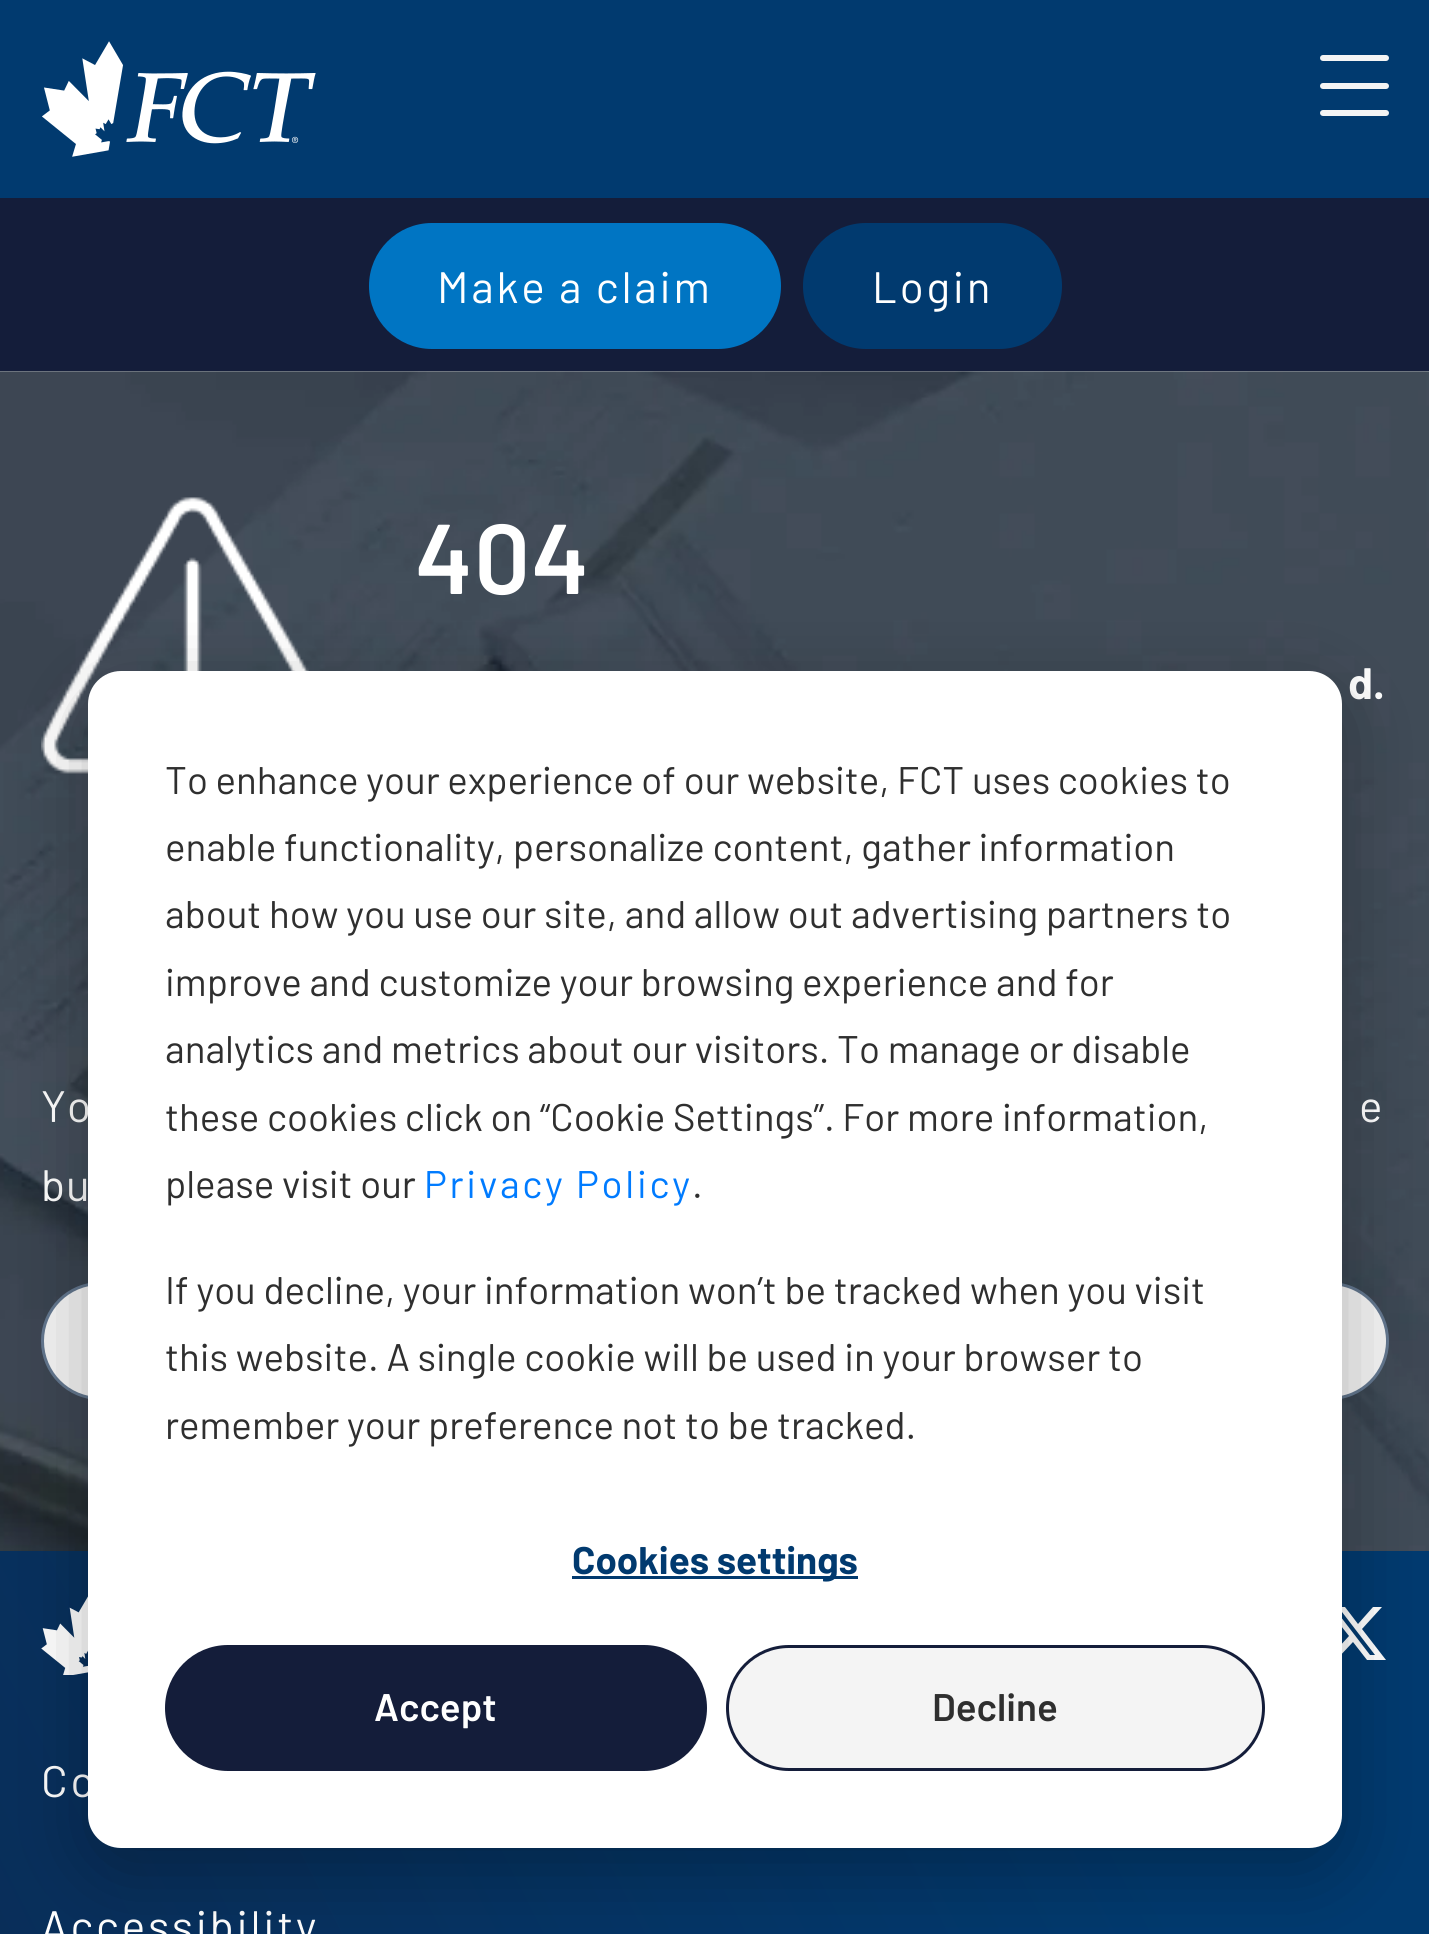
#include <cairo.h>
#include <math.h>
#include <stddef.h>


static void set_color(cairo_t *cr, unsigned color) {
    cairo_set_source_rgb(cr, (color >> 16) / 255.0, (color >> 8 & 255) / 255.0, (color & 255) / 255.0);
}

static void draw_text(cairo_t *cr, double x, double y, const char *s, const char *family, double size, int italic, int bold, unsigned color) {
    cairo_select_font_face(cr, family, italic ? CAIRO_FONT_SLANT_ITALIC : CAIRO_FONT_SLANT_NORMAL,
        bold ? CAIRO_FONT_WEIGHT_BOLD : CAIRO_FONT_WEIGHT_NORMAL);
    cairo_set_font_size(cr, size);
    set_color(cr, color);
    cairo_move_to(cr, x, y);
    cairo_show_text(cr, s);
}

static void draw_spaced(cairo_t *cr, double x, double y, const char *s, double letter, double word) {
    cairo_move_to(cr, x, y);
    while (*s) {
        char ch[5] = {0};
        int n = 0;
        do ch[n++] = *s++; while ((*s & 0xC0) == 0x80);
        cairo_show_text(cr, ch);
        cairo_rel_move_to(cr, letter + word * (*ch == ' '), 0);
    }
}

static void fill_rect(cairo_t *cr, double x, double y, double w, double h, unsigned color) {
    set_color(cr, color);
    cairo_rectangle(cr, x, y, w, h);
    cairo_fill(cr);
}

static void rounded_rect(cairo_t *cr, double x, double y, double w, double h, double r) {
    cairo_new_sub_path(cr);
    cairo_arc(cr, x + w - r, y + h - r, r, 0, M_PI / 2);
    cairo_arc(cr, x + r, y + h - r, r, M_PI / 2, M_PI);
    cairo_arc(cr, x + r, y + r, r, M_PI, 1.5 * M_PI);
    cairo_arc(cr, x + w - r, y + r, r, 1.5 * M_PI, 2 * M_PI);
    cairo_close_path(cr);
}

static void draw_shadow(cairo_t *cr, double x, double y, double w, double h, double r, double blur, double alpha) {
    cairo_push_group_with_content(cr, CAIRO_CONTENT_ALPHA);
    cairo_set_operator(cr, CAIRO_OPERATOR_SOURCE);
    for (int i = 15; i >= -15 && fmin(w, h) + blur * i / 3 > 0; i -= 2) {
        double e = blur * i / 6;
        cairo_set_source_rgba(cr, 0, 0, 0, alpha * erfc((i - 1) / 8.5) / 2);
        rounded_rect(cr, x - e, y - e, w + 2 * e, h + 2 * e, fmax(0, fmin(r + e + blur * .6, fmin(w, h) / 2 + e)));
        cairo_fill(cr);
    }
    cairo_pattern_t *soft = cairo_pop_group(cr);
    cairo_mask(cr, soft);
    cairo_pattern_destroy(soft);
}

static void draw_image(cairo_t *cr, const char *path, double x, double y, double w, double h) {
    cairo_surface_t *image = cairo_image_surface_create_from_png(path);
    cairo_save(cr);
    cairo_set_source_surface(cr, image, x, y);
    cairo_rectangle(cr, x, y, w, h);
    cairo_fill(cr);
    cairo_restore(cr);
    cairo_surface_destroy(image);
}

int main(void) {
    cairo_surface_t *surface = cairo_image_surface_create(CAIRO_FORMAT_RGB24, 1429, 1934);
    cairo_t *cr = cairo_create(surface);
    cairo_font_options_t *options = cairo_font_options_create();
    cairo_font_options_set_hint_metrics(options, CAIRO_HINT_METRICS_OFF);
    cairo_font_options_set_hint_style(options, CAIRO_HINT_STYLE_NONE);
    cairo_set_font_options(cr, options);
    cairo_set_miter_limit(cr, 4);
    cairo_pattern_t *gradient;
    set_color(cr, 0xFFFFFF);
    cairo_paint(cr);
    fill_rect(cr, 0, 0, 1429, 198, 0x013A6F);
    draw_image(cr, "assets/img1.png", 42, 41, 274, 116);
    set_color(cr, 0xF4F4F4);
    rounded_rect(cr, 1320, 83, 69, 6, 3);
    cairo_fill(cr);
    rounded_rect(cr, 1320, 55, 69, 6, 3);
    cairo_fill(cr);
    rounded_rect(cr, 1320, 110, 69, 6, 3);
    cairo_fill(cr);
    fill_rect(cr, 0, 198, 1429, 173, 0x141D3A);
    set_color(cr, 0x0075C3);
    rounded_rect(cr, 370.5, 224.5, 409, 123, 61.5);
    cairo_fill_preserve(cr);
    cairo_set_line_width(cr, 3);
    cairo_stroke(cr);
    cairo_select_font_face(cr, "Barlow", CAIRO_FONT_SLANT_NORMAL, CAIRO_FONT_WEIGHT_NORMAL);
    cairo_set_font_size(cr, 44);
    set_color(cr, 0xFFFFFF);
    draw_spaced(cr, 437, 303, "Make a claim", 2.75, 0);
    set_color(cr, 0x013A6F);
    rounded_rect(cr, 804.5, 224.5, 256, 123, 61.5);
    cairo_fill_preserve(cr);
    cairo_stroke(cr);
    set_color(cr, 0xFFFFFF);
    draw_spaced(cr, 872, 303, "Login", 2.75, 0);
    draw_image(cr, "assets/img2.png", 0, 371, 1429, 1180);
    draw_image(cr, "assets/img3.png", 41, 497, 268, 277);
    cairo_select_font_face(cr, "Barlow SemiBold", CAIRO_FONT_SLANT_NORMAL, CAIRO_FONT_WEIGHT_NORMAL);
    cairo_set_font_size(cr, 99);
    draw_spaced(cr, 415, 594, "404", 1, 0);
    draw_text(cr, 1348, 699, "d.", "Barlow", 44, 0, 1, 0xFFFFFF);
    cairo_select_font_face(cr, "Barlow", CAIRO_FONT_SLANT_NORMAL, CAIRO_FONT_WEIGHT_NORMAL);
    draw_spaced(cr, 41, 1122, "Yo", 1, 0);
    draw_spaced(cr, 1359, 1122, "e", 1, 0);
    draw_spaced(cr, 41, 1201, "bu", 1, 0);
    set_color(cr, 0xF4F4F4);
    rounded_rect(cr, 42.5, 1283.5, 1345, 115, 57.5);
    cairo_fill_preserve(cr);
    set_color(cr, 0x63778F);
    cairo_stroke(cr);
    gradient = cairo_pattern_create_linear(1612, 1908, -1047, 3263);
    cairo_pattern_add_color_stop_rgba(gradient, 0.13, 0.004, 0.227, 0.435, 1);
    cairo_pattern_add_color_stop_rgba(gradient, 1, 0.078, 0.114, 0.227, 1);
    cairo_set_source(cr, gradient);
    cairo_pattern_destroy(gradient);
    cairo_rectangle(cr, 0, 1551, 1429, 383);
    cairo_fill(cr);
    draw_image(cr, "assets/img4.png", 41, 1596, 47, 79);
    set_color(cr, 0xFFFFFF);
    cairo_new_path(cr);
    cairo_move_to(cr, 1373, 1607);
    cairo_line_to(cr, 1382, 1607);
    cairo_line_to(cr, 1362, 1629);
    cairo_line_to(cr, 1386, 1660);
    cairo_line_to(cr, 1367, 1660);
    cairo_line_to(cr, 1353, 1642);
    cairo_line_to(cr, 1336, 1660);
    cairo_line_to(cr, 1327, 1660);
    cairo_line_to(cr, 1349, 1636);
    cairo_line_to(cr, 1326, 1607);
    cairo_line_to(cr, 1345, 1607);
    cairo_line_to(cr, 1358, 1624);
    cairo_close_path(cr);
    cairo_move_to(cr, 1370, 1655);
    cairo_line_to(cr, 1375, 1655);
    cairo_line_to(cr, 1342, 1612);
    cairo_line_to(cr, 1337, 1612);
    cairo_close_path(cr);
    cairo_fill(cr);
    draw_spaced(cr, 41, 1797, "Co", 2.75, 0);
    draw_spaced(cr, 41, 1942, "Accessibility", 2.75, 0);
    set_color(cr, 0x000000);
    draw_shadow(cr, 88, 693, 1254, 1177, 33, 38.5, 0.28);
    set_color(cr, 0xFFFFFF);
    rounded_rect(cr, 88, 671, 1254, 1177, 33);
    cairo_fill(cr);
    draw_text(cr, 165, 794, "To enhance your experience of our website, FCT uses cookies to", "Barlow", 38.5, 0, 0, 0x2F2F2F);
    draw_text(cr, 165, 861, "enable functionality, personalize content, gather information", "Barlow", 38.5, 0, 0, 0x2F2F2F);
    draw_text(cr, 165, 928, "about how you use our site, and allow out advertising partners to", "Barlow", 38.5, 0, 0, 0x2F2F2F);
    draw_text(cr, 165, 996, "improve and customize your browsing experience and for", "Barlow", 38.5, 0, 0, 0x2F2F2F);
    draw_text(cr, 165, 1063, "analytics and metrics about our visitors. To manage or disable", "Barlow", 38.5, 0, 0, 0x2F2F2F);
    draw_text(cr, 165, 1131, "these cookies click on “Cookie Settings”. For more information,", "Barlow", 38.5, 0, 0, 0x2F2F2F);
    draw_text(cr, 165, 1198, "please visit our", "Barlow", 38.5, 0, 0, 0x2F2F2F);
    set_color(cr, 0x007BFF);
    draw_spaced(cr, 424, 1198, "Privacy Policy", 2.75, 0);
    draw_text(cr, 692, 1198, ".", "Barlow", 38.5, 0, 0, 0x2F2F2F);
    draw_text(cr, 165, 1304, "If you decline, your information won’t be tracked when you visit", "Barlow", 38.5, 0, 0, 0x2F2F2F);
    draw_text(cr, 165, 1371, "this website. A single cookie will be used in your browser to", "Barlow", 38.5, 0, 0, 0x2F2F2F);
    draw_text(cr, 165, 1439, "remember your preference not to be tracked.", "Barlow", 38.5, 0, 0, 0x2F2F2F);
    fill_rect(cr, 572, 1576, 286, 3, 0x013A6F);
    draw_text(cr, 572, 1574, "Cookies settings", "Barlow", 38.5, 0, 1, 0x013A6F);
    set_color(cr, 0x141D3A);
    rounded_rect(cr, 166.5, 1646.5, 539, 123, 61.5);
    cairo_fill_preserve(cr);
    cairo_stroke(cr);
    draw_text(cr, 374, 1721, "Accept", "Barlow SemiBold", 38.5, 0, 0, 0xFFFFFF);
    set_color(cr, 0xF4F4F4);
    rounded_rect(cr, 727.5, 1646.5, 536, 123, 61.5);
    cairo_fill_preserve(cr);
    set_color(cr, 0x141D3A);
    cairo_stroke(cr);
    draw_text(cr, 932, 1721, "Decline", "Barlow SemiBold", 38.5, 0, 0, 0x2F2F2F);
    cairo_surface_write_to_png(surface, "output.png");
    cairo_font_options_destroy(options);
    cairo_destroy(cr);
    cairo_surface_destroy(surface);
    return 0;
}
